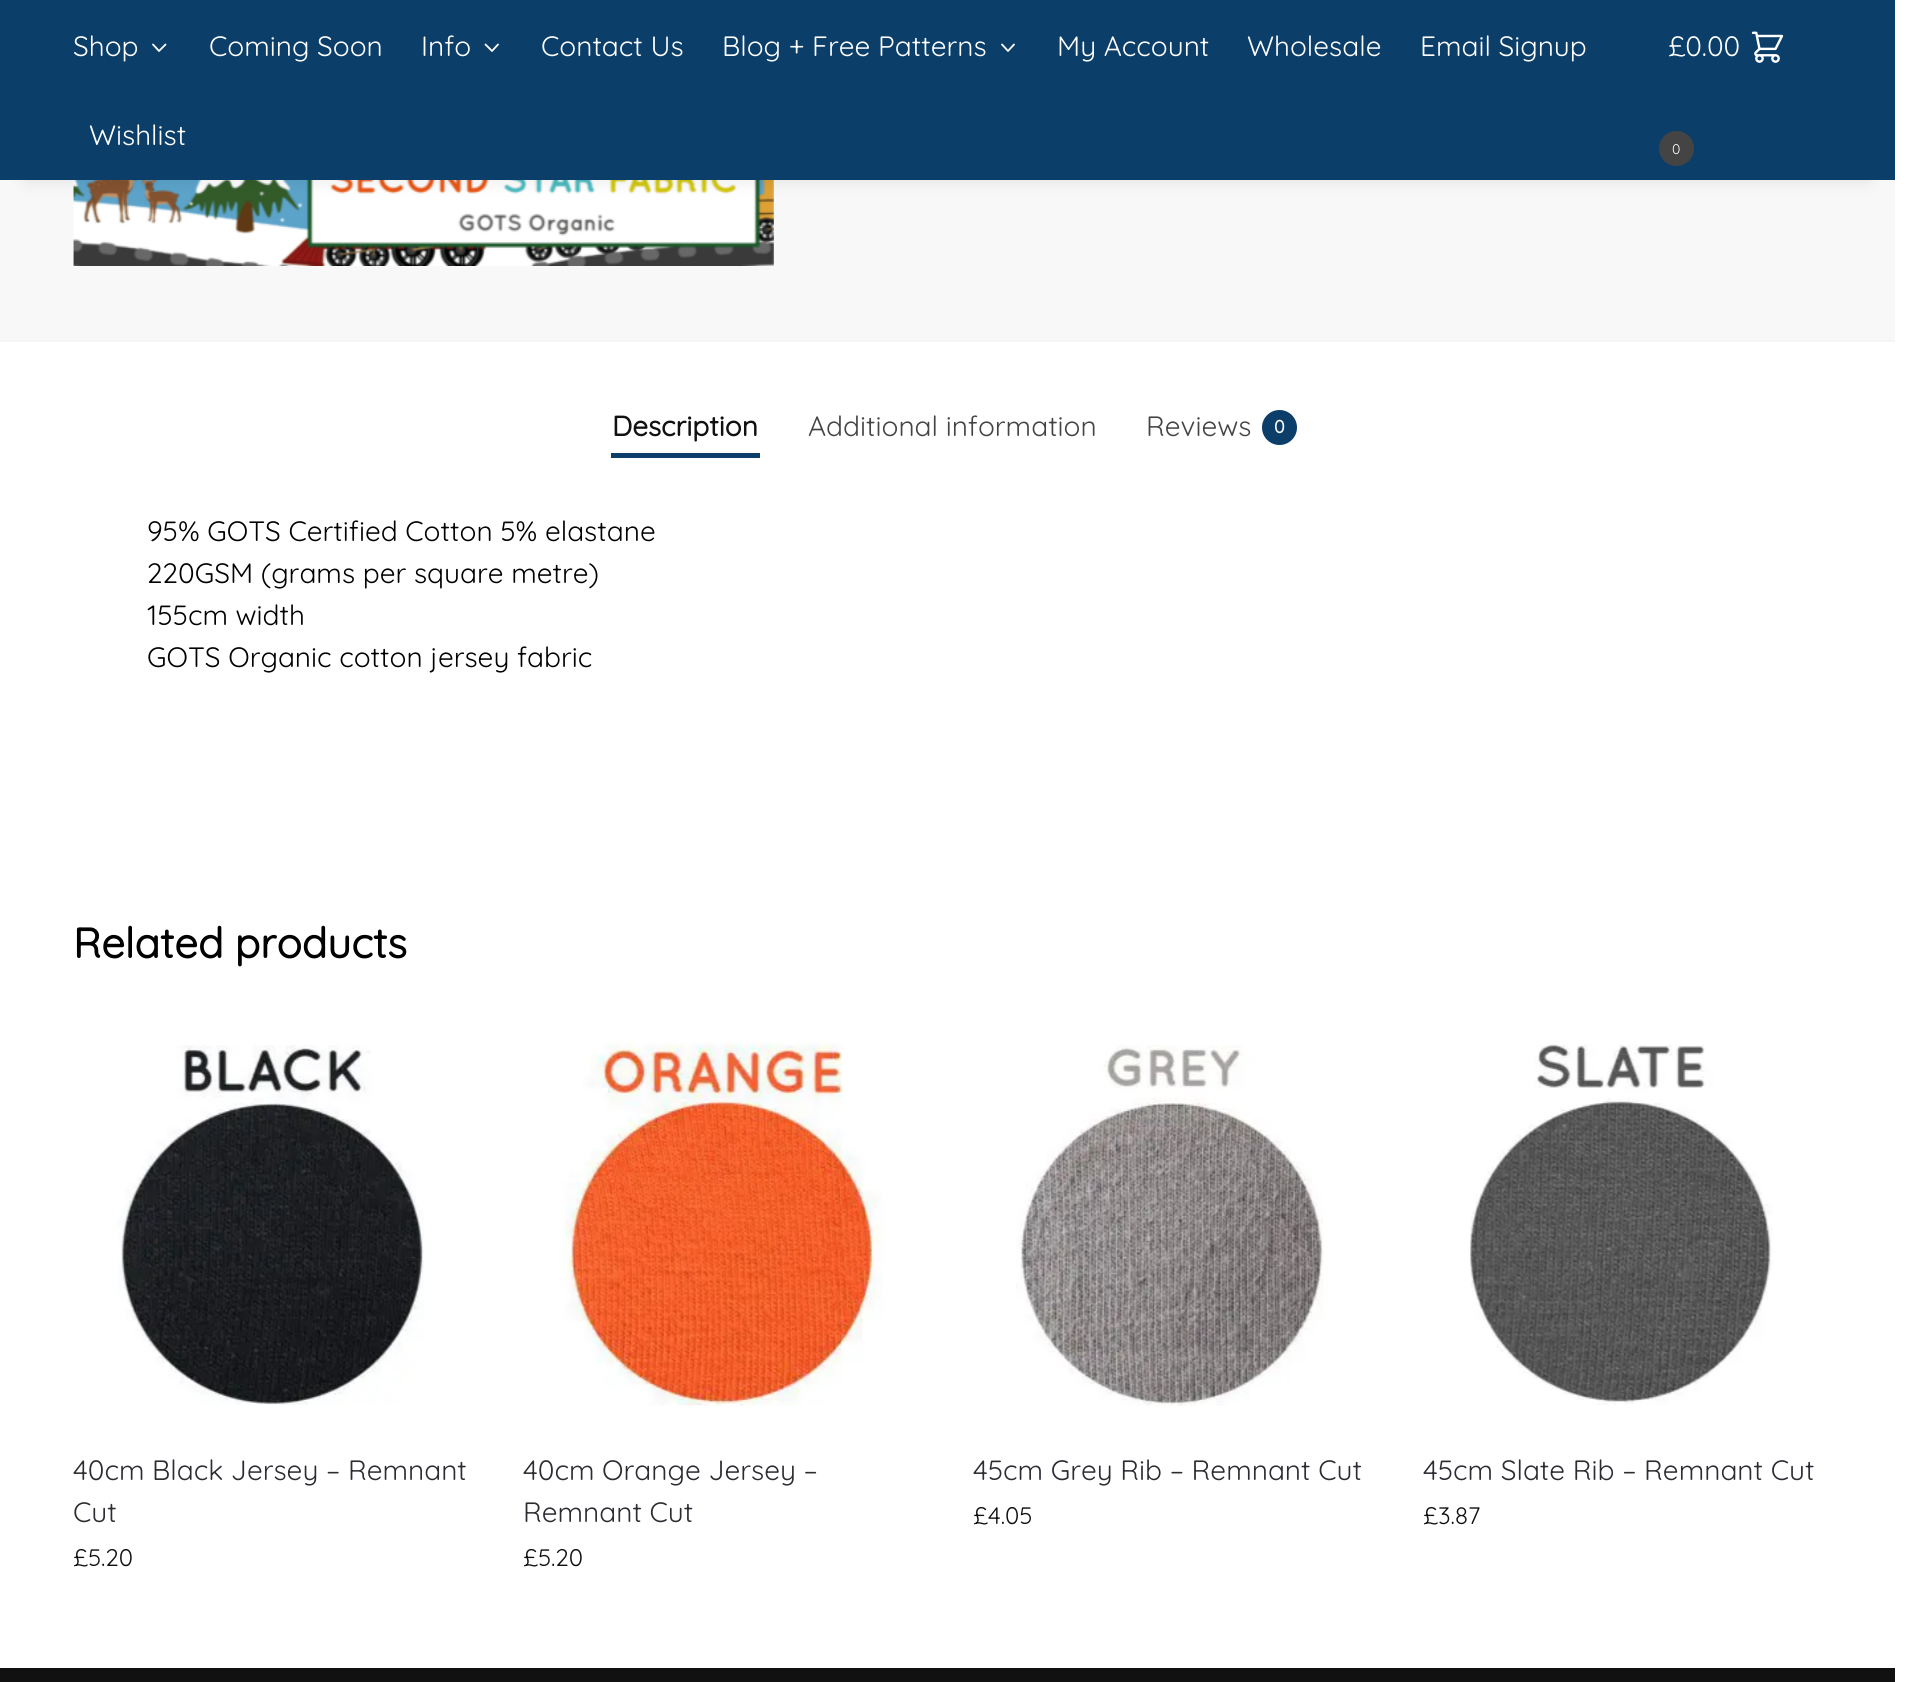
#include <cairo.h>
#include <math.h>
#include <stddef.h>


static void set_color(cairo_t *cr, unsigned color) {
    cairo_set_source_rgb(cr, (color >> 16) / 255.0, (color >> 8 & 255) / 255.0, (color & 255) / 255.0);
}

static void draw_text(cairo_t *cr, double x, double y, const char *s, const char *family, double size, int italic, int bold, unsigned color) {
    cairo_select_font_face(cr, family, italic ? CAIRO_FONT_SLANT_ITALIC : CAIRO_FONT_SLANT_NORMAL,
        bold ? CAIRO_FONT_WEIGHT_BOLD : CAIRO_FONT_WEIGHT_NORMAL);
    cairo_set_font_size(cr, size);
    set_color(cr, color);
    cairo_move_to(cr, x, y);
    cairo_show_text(cr, s);
}

static void fill_rect(cairo_t *cr, double x, double y, double w, double h, unsigned color) {
    set_color(cr, color);
    cairo_rectangle(cr, x, y, w, h);
    cairo_fill(cr);
}

static void rounded_rect(cairo_t *cr, double x, double y, double w, double h, double r) {
    cairo_new_sub_path(cr);
    cairo_arc(cr, x + w - r, y + h - r, r, 0, M_PI / 2);
    cairo_arc(cr, x + r, y + h - r, r, M_PI / 2, M_PI);
    cairo_arc(cr, x + r, y + r, r, M_PI, 1.5 * M_PI);
    cairo_arc(cr, x + w - r, y + r, r, 1.5 * M_PI, 2 * M_PI);
    cairo_close_path(cr);
}

static void draw_shadow(cairo_t *cr, double x, double y, double w, double h, double r, double blur, double alpha) {
    cairo_push_group_with_content(cr, CAIRO_CONTENT_ALPHA);
    cairo_set_operator(cr, CAIRO_OPERATOR_SOURCE);
    for (int i = 15; i >= -15 && fmin(w, h) + blur * i / 3 > 0; i -= 2) {
        double e = blur * i / 6;
        cairo_set_source_rgba(cr, 0, 0, 0, alpha * erfc((i - 1) / 8.5) / 2);
        rounded_rect(cr, x - e, y - e, w + 2 * e, h + 2 * e, fmax(0, fmin(r + e + blur * .6, fmin(w, h) / 2 + e)));
        cairo_fill(cr);
    }
    cairo_pattern_t *soft = cairo_pop_group(cr);
    cairo_mask(cr, soft);
    cairo_pattern_destroy(soft);
}

static void draw_image(cairo_t *cr, const char *path, double x, double y, double w, double h) {
    cairo_surface_t *image = cairo_image_surface_create_from_png(path);
    cairo_save(cr);
    cairo_set_source_surface(cr, image, x, y);
    cairo_rectangle(cr, x, y, w, h);
    cairo_fill(cr);
    cairo_restore(cr);
    cairo_surface_destroy(image);
}

int main(void) {
    cairo_surface_t *surface = cairo_image_surface_create(CAIRO_FORMAT_RGB24, 1921, 1682);
    cairo_t *cr = cairo_create(surface);
    cairo_font_options_t *options = cairo_font_options_create();
    cairo_font_options_set_hint_metrics(options, CAIRO_HINT_METRICS_OFF);
    cairo_font_options_set_hint_style(options, CAIRO_HINT_STYLE_NONE);
    cairo_set_font_options(cr, options);
    cairo_set_miter_limit(cr, 4);
    set_color(cr, 0xFFFFFF);
    cairo_paint(cr);
    fill_rect(cr, 0, 180, 1895, 160, 0xF8F8F8);
    draw_image(cr, "assets/img2.png", 73, 180, 701, 86);
    set_color(cr, 0x000000);
    draw_shadow(cr, 26, 53, 1843, 127, 0, 9, 0.1);
    fill_rect(cr, 0, 0, 1895, 180, 0x0C3E6A);
    draw_text(cr, 73, 56, "Shop", "Quicksand Light", 28, 0, 0, 0xFFFFFF);
    cairo_new_path(cr);
    cairo_move_to(cr, 165.5, 44.5);
    cairo_line_to(cr, 159, 51);
    cairo_line_to(cr, 153, 44.5);
    cairo_set_line_width(cr, 1.8);
    cairo_set_line_cap(cr, CAIRO_LINE_CAP_ROUND);
    cairo_set_line_join(cr, CAIRO_LINE_JOIN_ROUND);
    cairo_stroke(cr);
    draw_text(cr, 209, 56, "Coming Soon", "Quicksand Light", 28, 0, 0, 0xFFFFFF);
    draw_text(cr, 421, 56, "Info", "Quicksand Light", 28, 0, 0, 0xFFFFFF);
    cairo_new_path(cr);
    cairo_move_to(cr, 498, 44.5);
    cairo_line_to(cr, 492, 51);
    cairo_line_to(cr, 485.5, 44.5);
    cairo_stroke(cr);
    draw_text(cr, 541, 56, "Contact Us", "Quicksand Light", 28, 0, 0, 0xFFFFFF);
    draw_text(cr, 722, 56, "Blog + Free Patterns", "Quicksand Light", 28, 0, 0, 0xFFFFFF);
    cairo_new_path(cr);
    cairo_move_to(cr, 1014, 44.5);
    cairo_line_to(cr, 1008, 51);
    cairo_line_to(cr, 1002, 44.5);
    cairo_stroke(cr);
    draw_text(cr, 1057, 56, "My Account", "Quicksand Light", 28, 0, 0, 0xFFFFFF);
    draw_text(cr, 1247, 56, "Wholesale", "Quicksand Light", 28, 0, 0, 0xFFFFFF);
    draw_text(cr, 1420, 56, "Email Signup", "Quicksand Light", 28, 0, 0, 0xFFFFFF);
    draw_text(cr, 89, 145, "Wishlist", "Quicksand Light", 28, 0, 0, 0xFFFFFF);
    draw_text(cr, 1668, 56, "£0.00", "Quicksand Light", 28, 0, 0, 0xFFFFFF);
    draw_image(cr, "assets/img1.png", 1751, 31, 33, 32);
    set_color(cr, 0x444444);
    cairo_arc(cr, 1676.5, 148.5, 16.5, 0, 2 * M_PI);
    cairo_fill_preserve(cr);
    cairo_set_line_width(cr, 2);
    cairo_set_line_cap(cr, CAIRO_LINE_CAP_BUTT);
    cairo_set_line_join(cr, CAIRO_LINE_JOIN_MITER);
    cairo_stroke(cr);
    draw_text(cr, 1672, 154, "0", "Quicksand Light", 14, 0, 0, 0xFFFFFF);
    fill_rect(cr, 0, 340, 1895, 2, 0xF5F5F5);
    draw_text(cr, 612, 436, "Description", "Quicksand", 28, 0, 1, 0x111111);
    fill_rect(cr, 611, 453, 149, 5, 0x0C3E6A);
    draw_text(cr, 808, 436, "Additional information", "Quicksand Light", 28, 0, 0, 0x444444);
    draw_text(cr, 1146, 436, "Reviews", "Quicksand Light", 28, 0, 0, 0x444444);
    set_color(cr, 0x0C3E6A);
    cairo_new_path(cr);
    cairo_arc(cr, 1279.5, 427.5, 17.5, 0, 2 * M_PI);
    cairo_fill(cr);
    draw_text(cr, 1274, 433, "0", "Quicksand", 18, 0, 1, 0xFFFFFF);
    draw_text(cr, 147, 541, "95% GOTS Certified Cotton 5% elastane", "Quicksand Light", 28, 0, 0, 0x000000);
    draw_text(cr, 147, 583, "220GSM (grams per square metre)", "Quicksand Light", 28, 0, 0, 0x000000);
    draw_text(cr, 147, 625, "155cm width", "Quicksand Light", 28, 0, 0, 0x000000);
    draw_text(cr, 147, 667, "GOTS Organic cotton jersey fabric", "Quicksand Light", 28, 0, 0, 0x000000);
    draw_text(cr, 73, 958, "Related products", "Quicksand", 42, 0, 1, 0x000000);
    draw_image(cr, "assets/img3.png", 117, 1045, 307, 360);
    draw_text(cr, 73, 1480, "40cm Black Jersey – Remnant", "Quicksand Light", 28, 0, 0, 0x2C2D33);
    draw_text(cr, 73, 1522, "Cut", "Quicksand Light", 28, 0, 0, 0x2C2D33);
    draw_text(cr, 73, 1566, "£", "Quicksand Light", 24, 0, 0, 0x111111);
    draw_text(cr, 88, 1566, "5.20", "Quicksand Light", 24, 0, 0, 0x111111);
    draw_image(cr, "assets/img4.png", 564, 1042, 320, 364);
    draw_text(cr, 523, 1480, "40cm Orange Jersey –", "Quicksand Light", 28, 0, 0, 0x2C2D33);
    draw_text(cr, 523, 1522, "Remnant Cut", "Quicksand Light", 28, 0, 0, 0x2C2D33);
    draw_text(cr, 523, 1566, "£", "Quicksand Light", 24, 0, 0, 0x111111);
    draw_text(cr, 538, 1566, "5.20", "Quicksand Light", 24, 0, 0, 0x111111);
    draw_image(cr, "assets/img5.png", 1016, 1045, 308, 361);
    draw_text(cr, 973, 1480, "45cm Grey Rib – Remnant Cut", "Quicksand Light", 28, 0, 0, 0x2C2D33);
    draw_text(cr, 973, 1524, "£", "Quicksand Light", 24, 0, 0, 0x111111);
    draw_text(cr, 988, 1524, "4.05", "Quicksand Light", 24, 0, 0, 0x111111);
    draw_image(cr, "assets/img6.png", 1470, 1044, 303, 361);
    draw_text(cr, 1423, 1480, "45cm Slate Rib – Remnant Cut", "Quicksand Light", 28, 0, 0, 0x2C2D33);
    draw_text(cr, 1423, 1524, "£", "Quicksand Light", 24, 0, 0, 0x111111);
    draw_text(cr, 1438, 1524, "3.87", "Quicksand Light", 24, 0, 0, 0x111111);
    fill_rect(cr, 0, 1668, 1895, 14, 0x111111);
    cairo_surface_write_to_png(surface, "output.png");
    cairo_font_options_destroy(options);
    cairo_destroy(cr);
    cairo_surface_destroy(surface);
    return 0;
}
